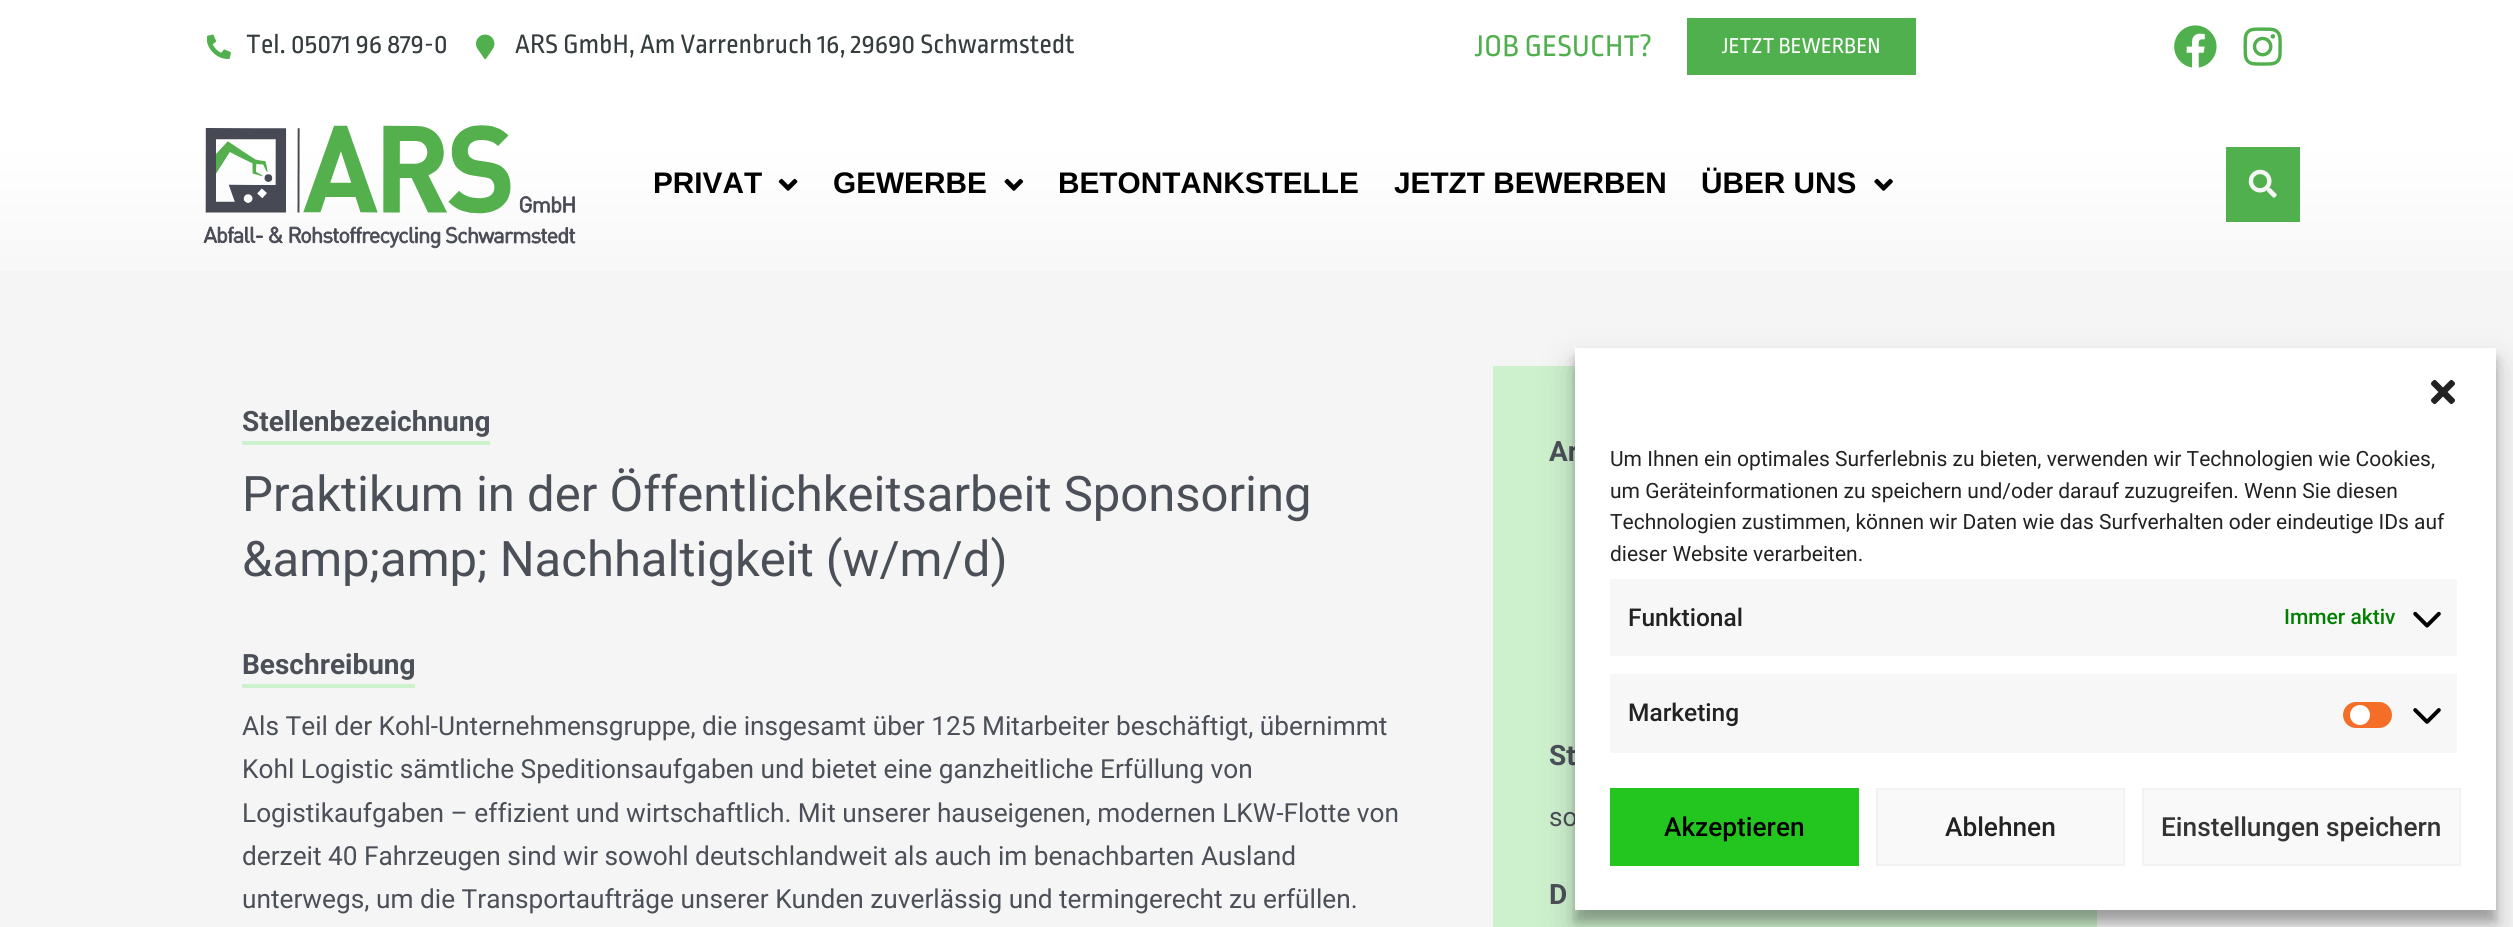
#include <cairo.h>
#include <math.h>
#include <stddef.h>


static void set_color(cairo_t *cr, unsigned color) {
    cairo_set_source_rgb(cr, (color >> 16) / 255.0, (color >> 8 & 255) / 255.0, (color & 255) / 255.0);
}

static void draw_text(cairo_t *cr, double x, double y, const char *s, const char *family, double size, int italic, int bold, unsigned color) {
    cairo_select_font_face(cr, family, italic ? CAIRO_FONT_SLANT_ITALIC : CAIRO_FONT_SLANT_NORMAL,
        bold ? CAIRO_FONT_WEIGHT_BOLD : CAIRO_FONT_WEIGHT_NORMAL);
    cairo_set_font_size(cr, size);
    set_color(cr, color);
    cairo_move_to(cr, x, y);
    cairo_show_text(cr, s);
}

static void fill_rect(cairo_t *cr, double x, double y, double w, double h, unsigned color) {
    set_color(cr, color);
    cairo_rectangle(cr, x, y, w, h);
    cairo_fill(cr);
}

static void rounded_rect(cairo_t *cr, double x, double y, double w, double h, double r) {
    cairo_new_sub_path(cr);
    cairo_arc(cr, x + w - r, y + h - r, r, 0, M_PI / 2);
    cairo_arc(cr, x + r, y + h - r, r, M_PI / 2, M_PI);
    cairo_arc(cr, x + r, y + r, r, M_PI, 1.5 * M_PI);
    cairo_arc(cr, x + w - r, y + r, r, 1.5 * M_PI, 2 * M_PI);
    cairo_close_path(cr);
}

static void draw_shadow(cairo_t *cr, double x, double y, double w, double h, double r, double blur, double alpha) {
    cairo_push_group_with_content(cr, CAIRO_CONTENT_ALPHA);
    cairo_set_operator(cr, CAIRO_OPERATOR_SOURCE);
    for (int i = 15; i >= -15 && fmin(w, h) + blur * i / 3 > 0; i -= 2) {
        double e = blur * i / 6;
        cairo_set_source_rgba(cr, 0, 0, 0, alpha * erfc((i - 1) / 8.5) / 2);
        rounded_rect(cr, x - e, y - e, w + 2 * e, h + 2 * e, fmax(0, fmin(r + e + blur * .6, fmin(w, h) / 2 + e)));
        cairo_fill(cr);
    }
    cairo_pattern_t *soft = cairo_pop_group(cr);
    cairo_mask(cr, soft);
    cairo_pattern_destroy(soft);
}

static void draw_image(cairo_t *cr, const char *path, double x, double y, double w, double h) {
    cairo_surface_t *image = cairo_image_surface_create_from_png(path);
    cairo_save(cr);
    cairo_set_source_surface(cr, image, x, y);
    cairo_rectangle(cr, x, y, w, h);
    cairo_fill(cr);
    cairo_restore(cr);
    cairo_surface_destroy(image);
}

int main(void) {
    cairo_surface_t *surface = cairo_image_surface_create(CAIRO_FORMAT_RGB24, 2513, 927);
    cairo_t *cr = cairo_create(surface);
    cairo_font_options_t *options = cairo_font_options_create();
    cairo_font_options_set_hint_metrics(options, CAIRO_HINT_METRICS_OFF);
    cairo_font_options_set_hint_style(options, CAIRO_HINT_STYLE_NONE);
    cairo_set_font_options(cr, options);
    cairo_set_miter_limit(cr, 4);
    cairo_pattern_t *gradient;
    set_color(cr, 0xF5F5F5);
    cairo_paint(cr);
    fill_rect(cr, 0, 0, 2513, 109, 0xFFFFFF);
    draw_image(cr, "assets/img1.png", 207, 34, 24, 26);
    draw_text(cr, 246, 53, "Tel. 05071 96 879-0", "Ropa Sans", 28, 0, 0, 0x353D3E);
    draw_image(cr, "assets/img2.png", 476, 34, 19, 25);
    draw_text(cr, 515, 53, "ARS GmbH, Am Varrenbruch 16, 29690 Schwarmstedt", "Ropa Sans", 28, 0, 0, 0x353D3E);
    draw_text(cr, 1475, 56, "JOB GESUCHT?", "Ropa Sans", 31.5, 0, 0, 0x50B04D);
    fill_rect(cr, 1687, 18, 229, 57, 0x50B04D);
    draw_text(cr, 1722, 53, "JETZT BEWERBEN", "Ropa Sans", 22.75, 0, 0, 0xFFFFFF);
    draw_image(cr, "assets/img3.png", 2174, 25, 43, 43);
    draw_image(cr, "assets/img4.png", 2243, 27, 39, 39);
    gradient = cairo_pattern_create_linear(1257, 108, 1257, 296);
    cairo_pattern_add_color_stop_rgba(gradient, 0.2, 1, 1, 1, 1);
    cairo_pattern_add_color_stop_rgba(gradient, 1, 0.965, 0.965, 0.965, 1);
    cairo_set_source(cr, gradient);
    cairo_pattern_destroy(gradient);
    cairo_rectangle(cr, 0, 109, 2513, 162);
    cairo_fill(cr);
    draw_image(cr, "assets/img5.png", 203, 125, 373, 124);
    draw_text(cr, 653, 193, "PRIVAT", "Liberation Sans", 29.75, 0, 1, 0x000000);
    draw_image(cr, "assets/img6.png", 778, 178, 20, 13);
    draw_text(cr, 833, 193, "GEWERBE", "Liberation Sans", 29.75, 0, 1, 0x000000);
    draw_image(cr, "assets/img7.png", 1004, 178, 20, 13);
    draw_text(cr, 1058, 193, "BETONTANKSTELLE", "Liberation Sans", 29.75, 0, 1, 0x000000);
    draw_text(cr, 1394, 193, "JETZT BEWERBEN", "Liberation Sans", 29.75, 0, 1, 0x000000);
    draw_text(cr, 1701, 193, "ÜBER UNS", "Liberation Sans", 29.75, 0, 1, 0x000000);
    draw_image(cr, "assets/img8.png", 1874, 178, 19, 13);
    fill_rect(cr, 2226, 147, 74, 75, 0x50B04D);
    draw_image(cr, "assets/img9.png", 2248, 169, 29, 29);
    draw_text(cr, 242, 431, "Stellenbezeichnung", "Roboto", 28, 0, 1, 0x4B4F58);
    fill_rect(cr, 242, 441, 248, 4, 0xCDF0CD);
    draw_text(cr, 242, 511, "Praktikum in der Öffentlichkeitsarbeit Sponsoring", "Roboto", 49, 0, 0, 0x4B4F58);
    draw_text(cr, 242, 576, "&amp;amp; Nachhaltigkeit (w/m/d)", "Roboto", 49, 0, 0, 0x4B4F58);
    draw_text(cr, 242, 674, "Beschreibung", "Roboto", 28, 0, 1, 0x4B4F58);
    fill_rect(cr, 242, 684, 173, 4, 0xCDF0CD);
    draw_text(cr, 242, 735, "Als Teil der Kohl-Unternehmensgruppe, die insgesamt über 125 Mitarbeiter beschäftigt, übernimmt", "Roboto", 26.25, 0, 0, 0x4B4F58);
    draw_text(cr, 242, 778, "Kohl Logistic sämtliche Speditionsaufgaben und bietet eine ganzheitliche Erfüllung von", "Roboto", 26.25, 0, 0, 0x4B4F58);
    draw_text(cr, 242, 822, "Logistikaufgaben – effizient und wirtschaftlich. Mit unserer hauseigenen, modernen LKW-Flotte von", "Roboto", 26.25, 0, 0, 0x4B4F58);
    draw_text(cr, 242, 865, "derzeit 40 Fahrzeugen sind wir sowohl deutschlandweit als auch im benachbarten Ausland", "Roboto", 26.25, 0, 0, 0x4B4F58);
    draw_text(cr, 242, 908, "unterwegs, um die Transportaufträge unserer Kunden zuverlässig und termingerecht zu erfüllen.", "Roboto", 26.25, 0, 0, 0x4B4F58);
    fill_rect(cr, 1493, 366, 604, 561, 0xCDF0CD);
    draw_text(cr, 1549, 461, "Ar", "Roboto", 28, 0, 1, 0x4B4F58);
    draw_text(cr, 1549, 765, "St", "Roboto", 28, 0, 1, 0x4B4F58);
    draw_text(cr, 1549, 826, "so", "Roboto", 26.25, 0, 0, 0x4B4F58);
    draw_text(cr, 1549, 904, "D", "Roboto", 28, 0, 1, 0x4B4F58);
    set_color(cr, 0x000000);
    draw_shadow(cr, 1575, 359, 921, 562, 0, 5, 0.23);
    draw_shadow(cr, 1575, 366, 921, 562, 0, 17.5, 0.19);
    fill_rect(cr, 1575, 348, 921, 562, 0xFFFFFF);
    draw_image(cr, "assets/img10.png", 2431, 380, 24, 24);
    draw_text(cr, 1610, 466, "Um Ihnen ein optimales Surferlebnis zu bieten, verwenden wir Technologien wie Cookies,", "Roboto", 21, 0, 0, 0x222222);
    draw_text(cr, 1610, 498, "um Geräteinformationen zu speichern und/oder darauf zuzugreifen. Wenn Sie diesen", "Roboto", 21, 0, 0, 0x222222);
    draw_text(cr, 1610, 529, "Technologien zustimmen, können wir Daten wie das Surfverhalten oder eindeutige IDs auf", "Roboto", 21, 0, 0, 0x222222);
    draw_text(cr, 1610, 561, "dieser Website verarbeiten.", "Roboto", 21, 0, 0, 0x222222);
    fill_rect(cr, 1610, 579, 847, 77, 0xF7F7F7);
    draw_text(cr, 1628, 626, "Funktional", "Roboto Medium", 24.5, 0, 0, 0x222222);
    draw_text(cr, 2284, 624, "Immer aktiv", "Roboto Medium", 21, 0, 0, 0x008000);
    draw_image(cr, "assets/img11.png", 2413, 611, 28, 17);
    fill_rect(cr, 1610, 674, 847, 79, 0xF7F7F7);
    draw_text(cr, 1628, 721, "Marketing", "Roboto Medium", 24.5, 0, 0, 0x222222);
    set_color(cr, 0xF56E28);
    rounded_rect(cr, 2343, 702, 49, 26, 13);
    cairo_fill(cr);
    set_color(cr, 0xFFFFFF);
    cairo_arc(cr, 2360, 715, 10, 0, 2 * M_PI);
    cairo_fill(cr);
    draw_image(cr, "assets/img12.png", 2413, 708, 28, 16);
    fill_rect(cr, 1610, 788, 249, 78, 0x22C61F);
    draw_text(cr, 1664, 836, "Akzeptieren", "Roboto Medium", 26.25, 0, 0, 0x000000);
    set_color(cr, 0xF9F9F9);
    cairo_rectangle(cr, 1877, 789, 247, 76);
    cairo_fill_preserve(cr);
    set_color(cr, 0xF2F2F2);
    cairo_stroke(cr);
    draw_text(cr, 1945, 836, "Ablehnen", "Roboto Medium", 26.25, 0, 0, 0x222222);
    set_color(cr, 0xF9F9F9);
    cairo_rectangle(cr, 2143, 789, 317, 76);
    cairo_fill_preserve(cr);
    set_color(cr, 0xF2F2F2);
    cairo_stroke(cr);
    draw_text(cr, 2161, 836, "Einstellungen speichern", "Roboto Medium", 26.25, 0, 0, 0x333333);
    cairo_surface_write_to_png(surface, "output.png");
    cairo_font_options_destroy(options);
    cairo_destroy(cr);
    cairo_surface_destroy(surface);
    return 0;
}
